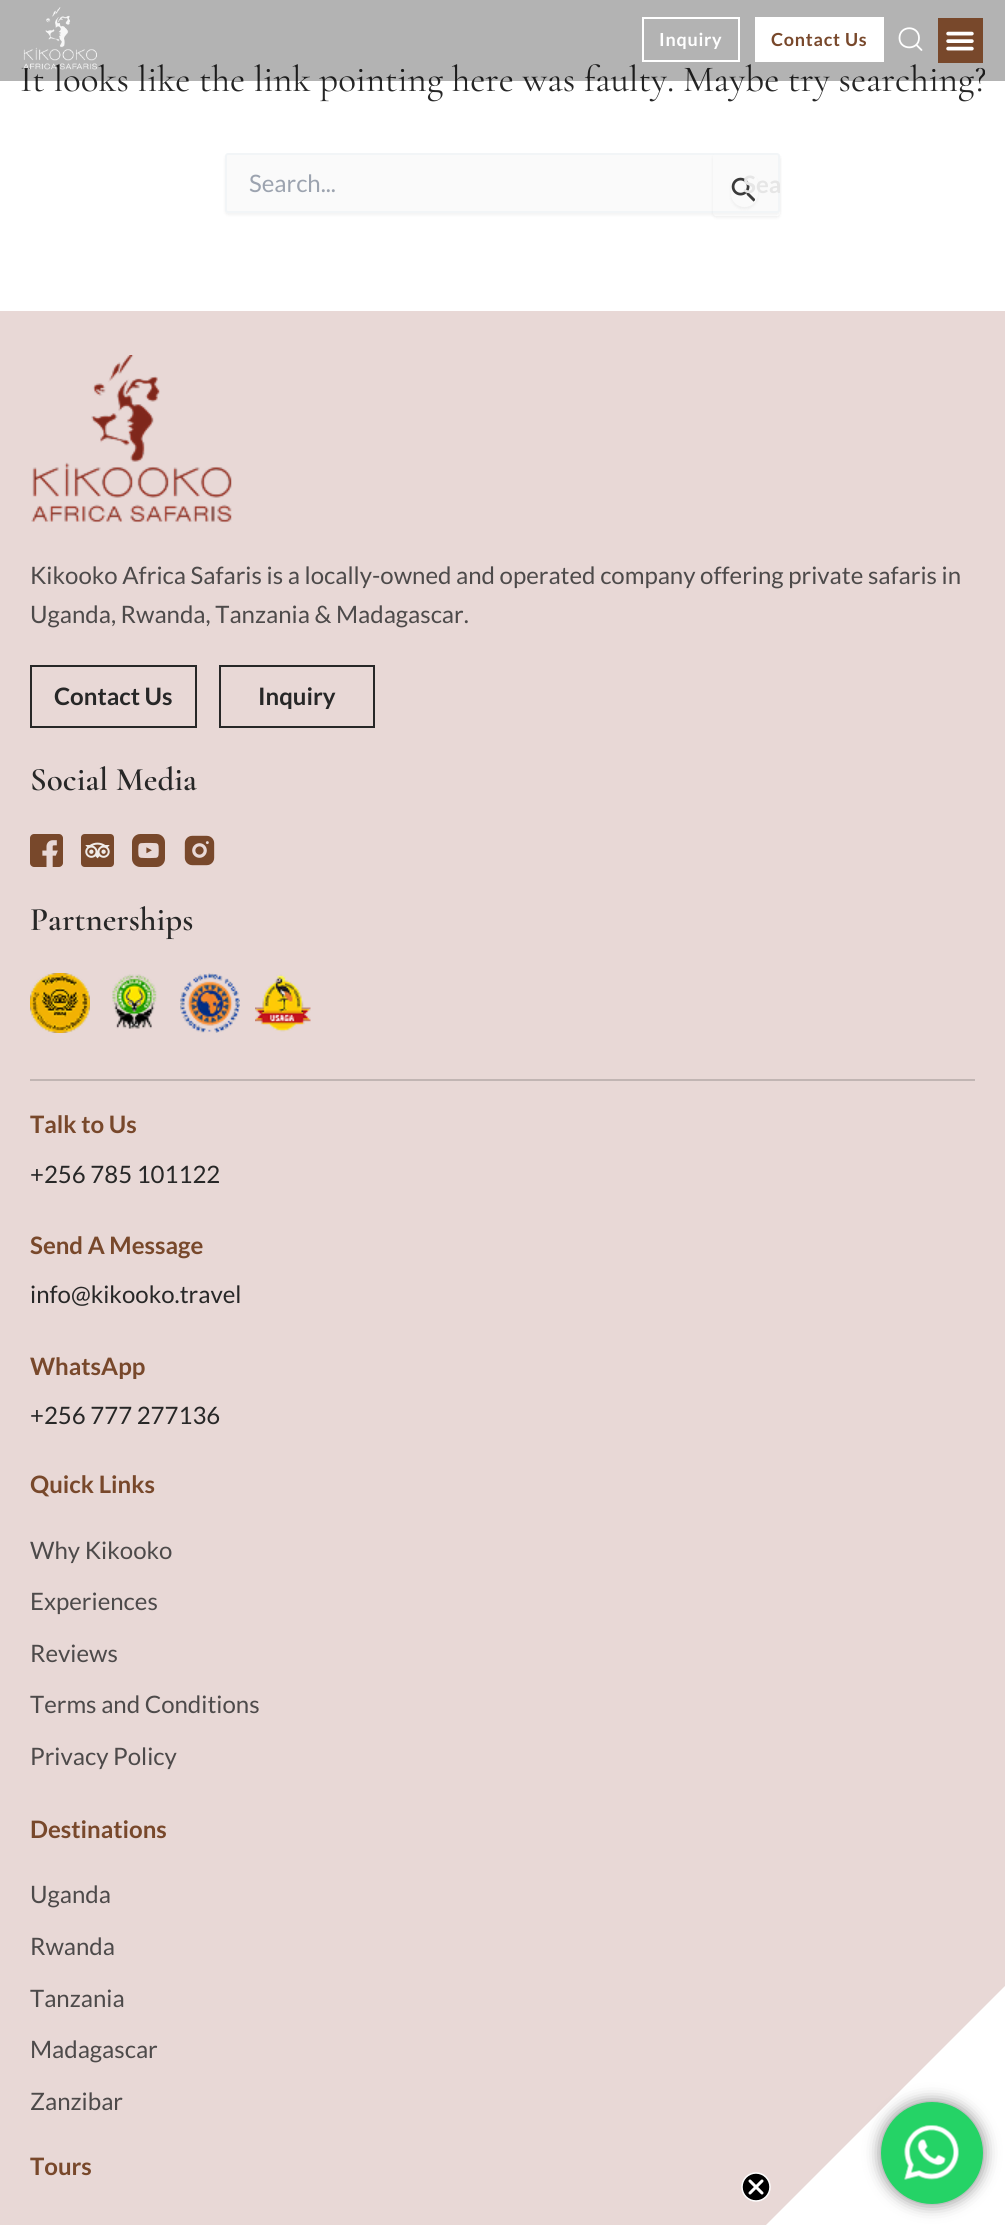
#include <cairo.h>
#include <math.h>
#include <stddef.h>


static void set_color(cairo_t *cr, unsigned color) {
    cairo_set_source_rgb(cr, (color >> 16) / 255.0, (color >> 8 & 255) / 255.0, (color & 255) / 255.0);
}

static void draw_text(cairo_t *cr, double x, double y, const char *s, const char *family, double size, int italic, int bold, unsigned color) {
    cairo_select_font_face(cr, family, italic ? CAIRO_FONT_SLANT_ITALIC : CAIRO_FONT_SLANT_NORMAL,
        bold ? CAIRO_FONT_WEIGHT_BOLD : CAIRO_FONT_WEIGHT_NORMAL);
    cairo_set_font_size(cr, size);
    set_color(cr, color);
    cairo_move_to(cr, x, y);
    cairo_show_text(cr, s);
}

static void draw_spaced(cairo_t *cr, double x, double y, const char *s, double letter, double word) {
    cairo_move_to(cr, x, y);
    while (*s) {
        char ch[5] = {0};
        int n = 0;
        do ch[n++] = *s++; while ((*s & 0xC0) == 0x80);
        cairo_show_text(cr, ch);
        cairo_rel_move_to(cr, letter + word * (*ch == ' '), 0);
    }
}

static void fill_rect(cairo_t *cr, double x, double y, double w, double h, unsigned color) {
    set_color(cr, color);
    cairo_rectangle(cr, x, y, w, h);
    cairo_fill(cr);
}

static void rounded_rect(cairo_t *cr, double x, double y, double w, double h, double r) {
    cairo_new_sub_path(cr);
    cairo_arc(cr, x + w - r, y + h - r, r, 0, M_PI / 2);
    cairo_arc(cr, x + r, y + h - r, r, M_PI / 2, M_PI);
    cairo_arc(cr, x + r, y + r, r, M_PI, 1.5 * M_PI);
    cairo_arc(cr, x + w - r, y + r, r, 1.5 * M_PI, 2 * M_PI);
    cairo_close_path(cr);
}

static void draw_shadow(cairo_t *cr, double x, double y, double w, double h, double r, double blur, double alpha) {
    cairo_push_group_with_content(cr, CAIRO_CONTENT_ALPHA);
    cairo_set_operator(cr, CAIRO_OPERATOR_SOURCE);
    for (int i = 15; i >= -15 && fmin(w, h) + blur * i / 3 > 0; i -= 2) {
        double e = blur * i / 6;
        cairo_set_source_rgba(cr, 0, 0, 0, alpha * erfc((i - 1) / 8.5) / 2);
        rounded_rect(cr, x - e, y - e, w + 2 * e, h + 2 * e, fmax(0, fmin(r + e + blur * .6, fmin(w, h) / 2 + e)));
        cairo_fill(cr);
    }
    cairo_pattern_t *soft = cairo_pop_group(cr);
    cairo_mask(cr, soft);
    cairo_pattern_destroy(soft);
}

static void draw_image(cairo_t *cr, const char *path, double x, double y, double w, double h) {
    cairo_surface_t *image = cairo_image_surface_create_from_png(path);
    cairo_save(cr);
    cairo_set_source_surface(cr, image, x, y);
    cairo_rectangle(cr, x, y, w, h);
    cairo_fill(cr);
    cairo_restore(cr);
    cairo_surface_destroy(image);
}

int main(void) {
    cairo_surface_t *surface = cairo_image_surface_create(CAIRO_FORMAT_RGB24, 1005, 2225);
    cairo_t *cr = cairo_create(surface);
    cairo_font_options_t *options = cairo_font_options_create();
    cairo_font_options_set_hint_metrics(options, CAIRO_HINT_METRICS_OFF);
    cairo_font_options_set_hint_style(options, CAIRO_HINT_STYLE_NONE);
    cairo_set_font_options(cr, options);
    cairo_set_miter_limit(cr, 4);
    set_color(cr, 0xFFFFFF);
    cairo_paint(cr);
    draw_text(cr, 20, 91, "It looks like the link pointing here was faulty. Maybe try searching?", "Cormorant Garamond", 36.95, 0, 0, 0x272727);
    cairo_set_source_rgba(cr, 0, 0, 0, 0.3);
    cairo_rectangle(cr, 0, 0, 1005, 81);
    cairo_fill(cr);
    draw_image(cr, "assets/img1.png", 23, 7, 74, 63);
    cairo_rectangle(cr, 643, 18, 96, 43);
    set_color(cr, 0xFFFFFF);
    cairo_stroke(cr);
    cairo_select_font_face(cr, "Lato", CAIRO_FONT_SLANT_NORMAL, CAIRO_FONT_WEIGHT_BOLD);
    cairo_set_font_size(cr, 18);
    draw_spaced(cr, 659, 46, "Inquiry", 0.75, 0);
    fill_rect(cr, 755, 17, 129, 45, 0xFFFFFF);
    set_color(cr, 0x78482B);
    draw_spaced(cr, 771, 46, "Contact Us", 0.75, 0);
    cairo_new_path(cr);
    cairo_move_to(cr, 916.5, 45);
    cairo_line_to(cr, 921.5, 50);
    cairo_move_to(cr, 919, 38);
    cairo_curve_to(cr, 919, 25, 899.5, 25, 899.5, 38);
    cairo_curve_to(cr, 899.5, 50.5, 919, 50.5, 919, 38);
    cairo_close_path(cr);
    set_color(cr, 0xFFFFFF);
    cairo_set_line_width(cr, 1.8);
    cairo_set_line_cap(cr, CAIRO_LINE_CAP_ROUND);
    cairo_set_line_join(cr, CAIRO_LINE_JOIN_ROUND);
    cairo_stroke(cr);
    fill_rect(cr, 938, 18, 45, 45, 0x78482B);
    draw_image(cr, "assets/img2.png", 946, 31, 28, 20);
    set_color(cr, 0x000000);
    draw_shadow(cr, 225, 155, 555, 60, 3, 1.5, 0.05);
    set_color(cr, 0xFAFAFA);
    rounded_rect(cr, 226, 154, 553, 58, 2);
    cairo_fill_preserve(cr);
    set_color(cr, 0xF2F5F7);
    cairo_set_line_width(cr, 2);
    cairo_set_line_cap(cr, CAIRO_LINE_CAP_BUTT);
    cairo_set_line_join(cr, CAIRO_LINE_JOIN_MITER);
    cairo_stroke(cr);
    draw_text(cr, 249, 192, "Search...", "Lato", 24, 0, 0, 0x9CA3AF);
    cairo_save(cr);
    cairo_set_fill_rule(cr, CAIRO_FILL_RULE_EVEN_ODD);
    cairo_new_path(cr);
    cairo_move_to(cr, 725, 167);
    cairo_line_to(cr, 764, 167);
    cairo_line_to(cr, 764, 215);
    cairo_line_to(cr, 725, 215);
    cairo_close_path(cr);
    cairo_move_to(cr, 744.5, 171);
    cairo_curve_to(cr, 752, 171, 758, 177, 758, 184.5);
    cairo_line_to(cr, 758, 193.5);
    cairo_curve_to(cr, 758, 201, 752, 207, 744.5, 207);
    cairo_curve_to(cr, 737, 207, 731, 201, 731, 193.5);
    cairo_line_to(cr, 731, 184.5);
    cairo_curve_to(cr, 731, 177, 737, 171, 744.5, 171);
    cairo_close_path(cr);
    cairo_clip(cr);
    set_color(cr, 0x000000);
    draw_shadow(cr, 731, 173, 27, 36, 13.5, 1.5, 0.05);
    cairo_restore(cr);
    draw_image(cr, "assets/img3.png", 731, 177, 24, 25);
    cairo_save(cr);
    cairo_set_fill_rule(cr, CAIRO_FILL_RULE_EVEN_ODD);
    cairo_new_path(cr);
    cairo_move_to(cr, 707, 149);
    cairo_line_to(cr, 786, 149);
    cairo_line_to(cr, 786, 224);
    cairo_line_to(cr, 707, 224);
    cairo_close_path(cr);
    cairo_move_to(cr, 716, 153);
    cairo_line_to(cr, 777, 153);
    cairo_curve_to(cr, 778.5, 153, 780, 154.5, 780, 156);
    cairo_line_to(cr, 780, 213);
    cairo_curve_to(cr, 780, 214.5, 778.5, 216, 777, 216);
    cairo_line_to(cr, 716, 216);
    cairo_curve_to(cr, 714.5, 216, 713, 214.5, 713, 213);
    cairo_line_to(cr, 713, 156);
    cairo_curve_to(cr, 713, 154.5, 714.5, 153, 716, 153);
    cairo_close_path(cr);
    cairo_clip(cr);
    set_color(cr, 0x000000);
    draw_shadow(cr, 713, 155, 67, 63, 3, 1.5, 0.05);
    cairo_restore(cr);
    draw_text(cr, 743, 193, "Sea", "Lato", 24, 0, 1, 0xE6E6E6);
    fill_rect(cr, 0, 311, 1005, 1914, 0xE8D8D6);
    draw_image(cr, "assets/img4.png", 31, 355, 201, 168);
    draw_text(cr, 30, 584, "Kikooko Africa Safaris is a locally-owned and operated company offering private safaris in", "Lato", 24, 0, 0, 0x4D4A4A);
    draw_text(cr, 30, 623, "Uganda, Rwanda, Tanzania & Madagascar.", "Lato", 24, 0, 0, 0x4D4A4A);
    cairo_rectangle(cr, 31, 666, 165, 61);
    set_color(cr, 0x272727);
    cairo_stroke(cr);
    draw_text(cr, 54, 705, "Contact Us", "Lato", 24, 0, 1, 0x272727);
    cairo_rectangle(cr, 220, 666, 154, 61);
    cairo_stroke(cr);
    draw_text(cr, 258, 705, "Inquiry", "Lato", 24, 0, 1, 0x272727);
    draw_text(cr, 30, 790, "Social Media", "Cormorant Garamond SemiBold", 33, 0, 0, 0x272727);
    draw_image(cr, "assets/img5.png", 30, 834, 33, 33);
    draw_image(cr, "assets/img6.png", 81, 834, 33, 33);
    draw_image(cr, "assets/img7.png", 132, 834, 33, 33);
    draw_image(cr, "assets/img8.png", 184, 835, 31, 31);
    draw_text(cr, 30, 930, "Partnerships", "Cormorant Garamond SemiBold", 33, 0, 0, 0x272727);
    draw_image(cr, "assets/img9.png", 30, 973, 60, 60);
    draw_image(cr, "assets/img10.png", 112, 974, 45, 55);
    draw_image(cr, "assets/img11.png", 180, 973, 60, 60);
    draw_image(cr, "assets/img12.png", 255, 974, 56, 58);
    fill_rect(cr, 30, 1079, 945, 2, 0xC1B5B3);
    draw_text(cr, 30, 1133, "Talk to Us", "Lato", 24, 0, 1, 0x78482B);
    draw_text(cr, 30, 1183, "+256 785 101122", "Lato", 24, 0, 0, 0x272727);
    draw_text(cr, 30, 1254, "Send A Message", "Lato", 24, 0, 1, 0x78482B);
    draw_text(cr, 30, 1303, "info@kikooko.travel", "Lato", 24, 0, 0, 0x272727);
    draw_text(cr, 30, 1375, "WhatsApp", "Lato", 24, 0, 1, 0x78482B);
    draw_text(cr, 30, 1424, "+256 777 277136", "Lato", 24, 0, 0, 0x272727);
    draw_text(cr, 30, 1493, "Quick Links", "Lato", 24, 0, 1, 0x78482B);
    draw_text(cr, 30, 1559, "Why Kikooko", "Lato", 24, 0, 0, 0x4D4A4A);
    draw_text(cr, 30, 1610, "Experiences", "Lato", 24, 0, 0, 0x4D4A4A);
    draw_text(cr, 30, 1662, "Reviews", "Lato", 24, 0, 0, 0x4D4A4A);
    draw_text(cr, 30, 1713, "Terms and Conditions", "Lato", 24, 0, 0, 0x4D4A4A);
    draw_text(cr, 30, 1765, "Privacy Policy", "Lato", 24, 0, 0, 0x4D4A4A);
    draw_text(cr, 30, 1838, "Destinations", "Lato", 24, 0, 1, 0x78482B);
    draw_text(cr, 30, 1903, "Uganda", "Lato", 24, 0, 0, 0x4D4A4A);
    draw_text(cr, 30, 1955, "Rwanda", "Lato", 24, 0, 0, 0x4D4A4A);
    draw_text(cr, 30, 2007, "Tanzania", "Lato", 24, 0, 0, 0x4D4A4A);
    draw_text(cr, 30, 2058, "Madagascar", "Lato", 24, 0, 0, 0x4D4A4A);
    draw_text(cr, 30, 2110, "Zanzibar", "Lato", 24, 0, 0, 0x4D4A4A);
    draw_text(cr, 30, 2175, "Tours", "Lato", 24, 0, 1, 0x78482B);
    set_color(cr, 0xFFFFFF);
    cairo_new_path(cr);
    cairo_move_to(cr, 765, 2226);
    cairo_line_to(cr, 1005, 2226);
    cairo_line_to(cr, 1005, 1986);
    cairo_close_path(cr);
    cairo_fill(cr);
    set_color(cr, 0x000000);
    cairo_arc(cr, 756, 2187, 14, 0, 2 * M_PI);
    cairo_fill_preserve(cr);
    set_color(cr, 0xFFFFFF);
    cairo_set_line_width(cr, 1.5);
    cairo_stroke(cr);
    cairo_new_path(cr);
    cairo_move_to(cr, 750, 2181);
    cairo_line_to(cr, 762, 2193);
    cairo_move_to(cr, 750, 2193);
    cairo_line_to(cr, 762, 2181);
    cairo_close_path(cr);
    cairo_set_line_width(cr, 3);
    cairo_set_line_cap(cr, CAIRO_LINE_CAP_ROUND);
    cairo_set_line_join(cr, CAIRO_LINE_JOIN_ROUND);
    cairo_stroke(cr);
    set_color(cr, 0x000000);
    draw_shadow(cr, 881, 2102, 102, 102, 51, 8, 0.5);
    set_color(cr, 0x25D366);
    cairo_arc(cr, 932, 2153, 51, 0, 2 * M_PI);
    cairo_fill(cr);
    draw_image(cr, "assets/img13.png", 904, 2125, 55, 55);
    cairo_surface_write_to_png(surface, "output.png");
    cairo_font_options_destroy(options);
    cairo_destroy(cr);
    cairo_surface_destroy(surface);
    return 0;
}
